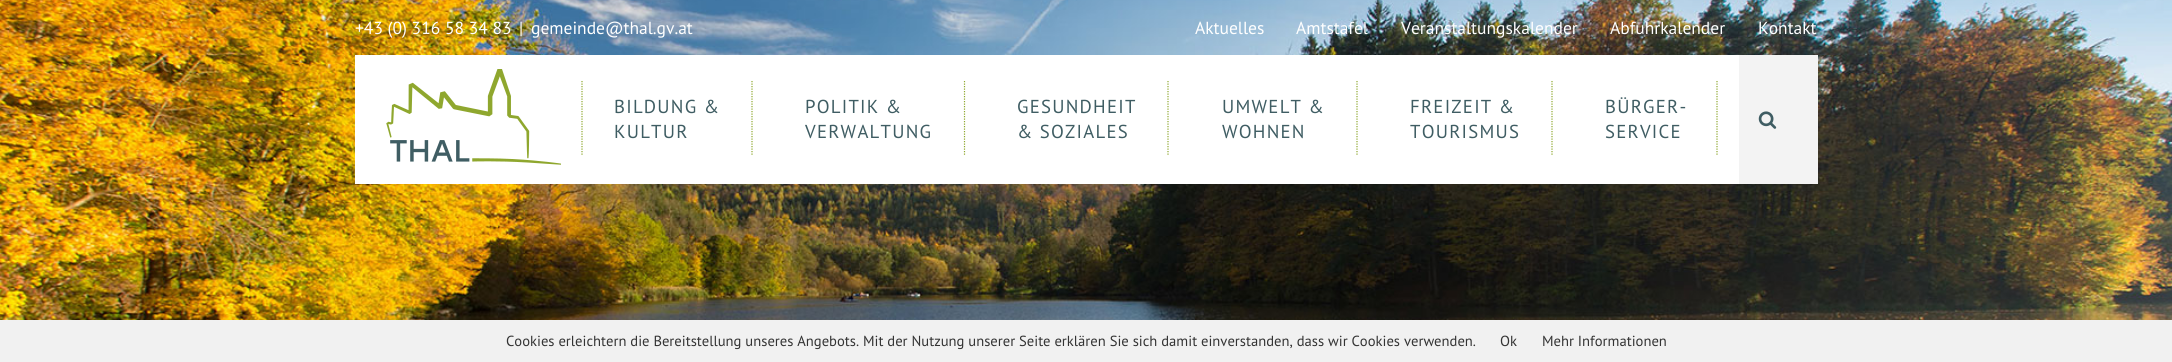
#include <cairo.h>
#include <math.h>
#include <stddef.h>


static void set_color(cairo_t *cr, unsigned color) {
    cairo_set_source_rgb(cr, (color >> 16) / 255.0, (color >> 8 & 255) / 255.0, (color & 255) / 255.0);
}

static void draw_text(cairo_t *cr, double x, double y, const char *s, const char *family, double size, int italic, int bold, unsigned color) {
    cairo_select_font_face(cr, family, italic ? CAIRO_FONT_SLANT_ITALIC : CAIRO_FONT_SLANT_NORMAL,
        bold ? CAIRO_FONT_WEIGHT_BOLD : CAIRO_FONT_WEIGHT_NORMAL);
    cairo_set_font_size(cr, size);
    set_color(cr, color);
    cairo_move_to(cr, x, y);
    cairo_show_text(cr, s);
}

static void draw_spaced(cairo_t *cr, double x, double y, const char *s, double letter, double word) {
    cairo_move_to(cr, x, y);
    while (*s) {
        char ch[5] = {0};
        int n = 0;
        do ch[n++] = *s++; while ((*s & 0xC0) == 0x80);
        cairo_show_text(cr, ch);
        cairo_rel_move_to(cr, letter + word * (*ch == ' '), 0);
    }
}

static void fill_rect(cairo_t *cr, double x, double y, double w, double h, unsigned color) {
    set_color(cr, color);
    cairo_rectangle(cr, x, y, w, h);
    cairo_fill(cr);
}

static void draw_image(cairo_t *cr, const char *path, double x, double y, double w, double h) {
    cairo_surface_t *image = cairo_image_surface_create_from_png(path);
    cairo_save(cr);
    cairo_set_source_surface(cr, image, x, y);
    cairo_rectangle(cr, x, y, w, h);
    cairo_fill(cr);
    cairo_restore(cr);
    cairo_surface_destroy(image);
}

int main(void) {
    cairo_surface_t *surface = cairo_image_surface_create(CAIRO_FORMAT_RGB24, 2172, 362);
    cairo_t *cr = cairo_create(surface);
    cairo_font_options_t *options = cairo_font_options_create();
    cairo_font_options_set_hint_metrics(options, CAIRO_HINT_METRICS_OFF);
    cairo_font_options_set_hint_style(options, CAIRO_HINT_STYLE_NONE);
    cairo_set_font_options(cr, options);
    cairo_set_miter_limit(cr, 4);
    set_color(cr, 0xFFFFFF);
    cairo_paint(cr);
    draw_image(cr, "assets/img1.png", 0, 0, 2172, 320);
    draw_text(cr, 355, 34, "+43 (0) 316 58 34 83", "PT Sans", 17.5, 0, 0, 0xFFFFFF);
    draw_text(cr, 519, 34, "|", "PT Sans", 17.5, 0, 0, 0xFFFFFF);
    draw_text(cr, 531, 34, "gemeinde@thal.gv.at", "PT Sans", 17.5, 0, 0, 0xFFFFFF);
    draw_text(cr, 1195, 34, "Aktuelles", "PT Sans", 17.5, 0, 0, 0xFFFFFF);
    draw_text(cr, 1296, 34, "Amtstafel", "PT Sans", 17.5, 0, 0, 0xFFFFFF);
    draw_text(cr, 1401, 34, "Veranstaltungskalender", "PT Sans", 17.5, 0, 0, 0xFFFFFF);
    draw_text(cr, 1610, 34, "Abfuhrkalender", "PT Sans", 17.5, 0, 0, 0xFFFFFF);
    draw_text(cr, 1758, 34, "Kontakt", "PT Sans", 17.5, 0, 0, 0xFFFFFF);
    fill_rect(cr, 355, 55, 1384, 129, 0xFFFFFF);
    draw_image(cr, "assets/img2.png", 386, 69, 175, 96);
    cairo_new_path(cr);
    cairo_move_to(cr, 752, 81);
    cairo_line_to(cr, 752, 156);
    set_color(cr, 0x8FA72E);
    cairo_set_line_width(cr, 1.2);
    cairo_set_dash(cr, (double[]){1.25, 1.25}, 2, 0);
    cairo_stroke(cr);
    cairo_new_path(cr);
    cairo_move_to(cr, 582, 81);
    cairo_line_to(cr, 582, 156);
    cairo_stroke(cr);
    cairo_set_font_size(cr, 18.75);
    set_color(cr, 0x3F5D63);
    draw_spaced(cr, 614, 113, "BILDUNG &", 1.25, 0);
    draw_spaced(cr, 614, 138, "KULTUR", 1.25, 0);
    cairo_new_path(cr);
    cairo_move_to(cr, 964.5, 81);
    cairo_line_to(cr, 964.5, 156);
    set_color(cr, 0x8FA72E);
    cairo_stroke(cr);
    set_color(cr, 0x3F5D63);
    draw_spaced(cr, 805, 113, "POLITIK &", 1.25, 0);
    draw_spaced(cr, 805, 138, "VERWALTUNG", 1.25, 0);
    cairo_new_path(cr);
    cairo_move_to(cr, 1168, 81);
    cairo_line_to(cr, 1168, 156);
    set_color(cr, 0x8FA72E);
    cairo_stroke(cr);
    set_color(cr, 0x3F5D63);
    draw_spaced(cr, 1017, 113, "GESUNDHEIT", 1.25, 0);
    draw_spaced(cr, 1017, 138, "& SOZIALES", 1.25, 0);
    cairo_new_path(cr);
    cairo_move_to(cr, 1357, 81);
    cairo_line_to(cr, 1357, 156);
    set_color(cr, 0x8FA72E);
    cairo_stroke(cr);
    set_color(cr, 0x3F5D63);
    draw_spaced(cr, 1222, 113, "UMWELT &", 1.25, 0);
    draw_spaced(cr, 1222, 138, "WOHNEN", 1.25, 0);
    cairo_new_path(cr);
    cairo_move_to(cr, 1552, 81);
    cairo_line_to(cr, 1552, 156);
    set_color(cr, 0x8FA72E);
    cairo_stroke(cr);
    set_color(cr, 0x3F5D63);
    draw_spaced(cr, 1410, 113, "FREIZEIT &", 1.25, 0);
    draw_spaced(cr, 1410, 138, "TOURISMUS", 1.25, 0);
    cairo_new_path(cr);
    cairo_move_to(cr, 1717, 81);
    cairo_line_to(cr, 1717, 156);
    set_color(cr, 0x8FA72E);
    cairo_stroke(cr);
    set_color(cr, 0x3F5D63);
    draw_spaced(cr, 1605, 113, "BÜRGER-", 1.25, 0);
    draw_spaced(cr, 1605, 138, "SERVICE", 1.25, 0);
    fill_rect(cr, 1739, 55, 79, 129, 0xF3F3F3);
    draw_image(cr, "assets/img3.png", 1758, 111, 19, 18);
    fill_rect(cr, 0, 320, 2172, 42, 0xF1F1F1);
    draw_text(cr, 506, 346, "Cookies erleichtern die Bereitstellung unseres Angebots. Mit der Nutzung unserer Seite erklären Sie sich damit einverstanden, dass wir Cookies verwenden.", "PT Sans", 14.62, 0, 0, 0x333333);
    draw_text(cr, 1500, 346, "Ok", "PT Sans", 14.62, 0, 0, 0x333333);
    draw_text(cr, 1542, 346, "Mehr Informationen", "PT Sans", 14.62, 0, 0, 0x333333);
    cairo_surface_write_to_png(surface, "output.png");
    cairo_font_options_destroy(options);
    cairo_destroy(cr);
    cairo_surface_destroy(surface);
    return 0;
}
